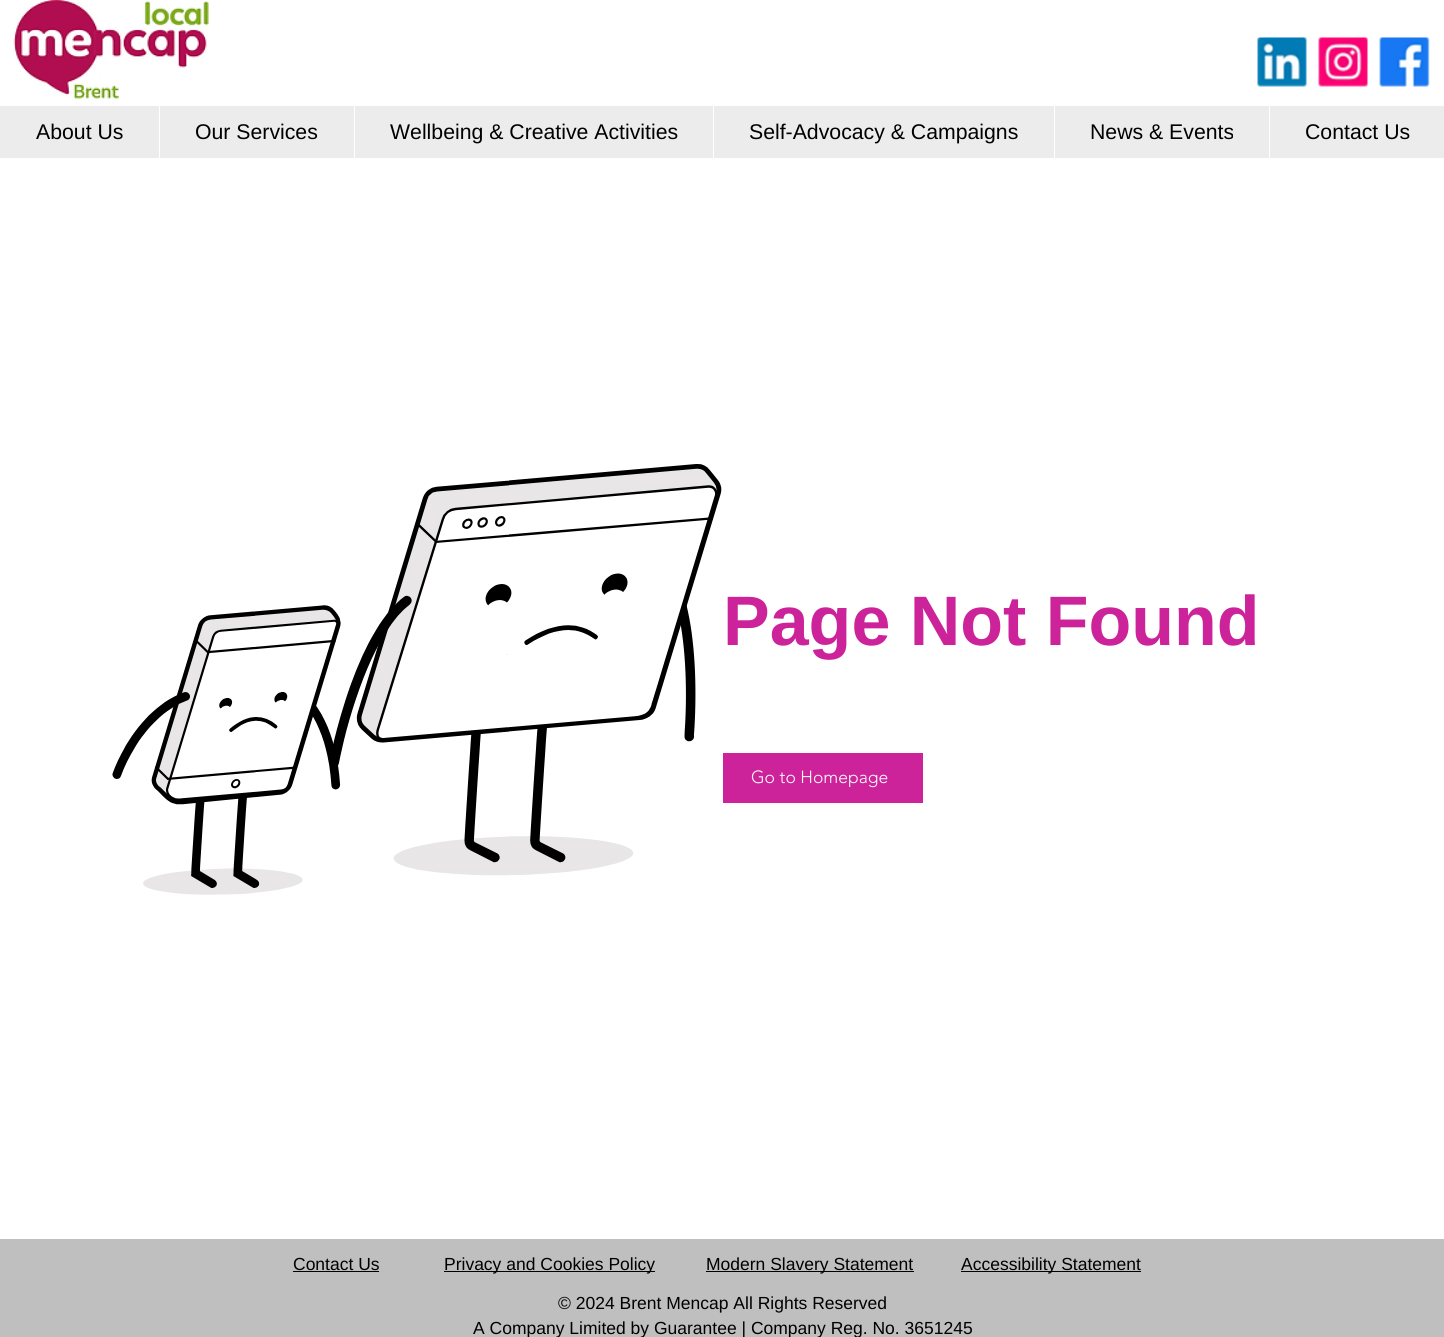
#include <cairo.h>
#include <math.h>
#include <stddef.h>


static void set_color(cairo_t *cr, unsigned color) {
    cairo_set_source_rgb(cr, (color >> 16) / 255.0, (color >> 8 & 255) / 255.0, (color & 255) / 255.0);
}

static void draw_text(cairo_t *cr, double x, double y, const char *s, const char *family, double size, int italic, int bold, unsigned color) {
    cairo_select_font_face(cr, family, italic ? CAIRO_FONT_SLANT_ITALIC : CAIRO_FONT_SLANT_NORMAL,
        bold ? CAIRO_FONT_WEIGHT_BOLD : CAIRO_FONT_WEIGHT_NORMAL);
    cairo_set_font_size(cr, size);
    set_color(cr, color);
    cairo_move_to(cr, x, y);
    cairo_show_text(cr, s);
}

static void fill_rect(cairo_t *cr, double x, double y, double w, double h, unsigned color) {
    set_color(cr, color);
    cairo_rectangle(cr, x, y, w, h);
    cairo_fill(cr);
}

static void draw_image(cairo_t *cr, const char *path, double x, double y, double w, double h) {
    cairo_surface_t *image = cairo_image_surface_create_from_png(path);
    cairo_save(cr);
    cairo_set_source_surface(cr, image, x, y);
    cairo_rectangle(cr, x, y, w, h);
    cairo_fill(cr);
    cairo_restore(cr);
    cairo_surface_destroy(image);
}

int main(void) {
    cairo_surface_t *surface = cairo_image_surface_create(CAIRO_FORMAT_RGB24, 1444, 1337);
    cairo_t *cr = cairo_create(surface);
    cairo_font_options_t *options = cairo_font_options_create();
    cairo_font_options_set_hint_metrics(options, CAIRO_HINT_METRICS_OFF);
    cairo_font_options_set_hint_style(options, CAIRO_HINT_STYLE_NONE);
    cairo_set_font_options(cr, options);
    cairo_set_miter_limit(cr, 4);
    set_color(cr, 0xFFFFFF);
    cairo_paint(cr);
    draw_image(cr, "assets/img1.png", 13, 0, 196, 99);
    draw_image(cr, "assets/img2.png", 1257, 37, 50, 50);
    draw_image(cr, "assets/img3.png", 1318, 37, 50, 50);
    draw_image(cr, "assets/img4.png", 1379, 37, 51, 50);
    fill_rect(cr, 0, 106, 1444, 52, 0xECECEC);
    draw_text(cr, 36, 139, "About Us", "Liberation Sans", 21.25, 0, 0, 0x000000);
    fill_rect(cr, 159, 106, 1, 52, 0xFFFFFF);
    draw_text(cr, 195, 139, "Our Services", "Liberation Sans", 21.25, 0, 0, 0x000000);
    fill_rect(cr, 354, 106, 1, 52, 0xFFFFFF);
    draw_text(cr, 390, 139, "Wellbeing & Creative Activities", "Liberation Sans", 21.25, 0, 0, 0x000000);
    fill_rect(cr, 713, 106, 1, 52, 0xFFFFFF);
    draw_text(cr, 749, 139, "Self-Advocacy & Campaigns", "Liberation Sans", 21.25, 0, 0, 0x000000);
    fill_rect(cr, 1054, 106, 1, 52, 0xFFFFFF);
    draw_text(cr, 1090, 139, "News & Events", "Liberation Sans", 21.25, 0, 0, 0x000000);
    fill_rect(cr, 1269, 106, 1, 52, 0xFFFFFF);
    draw_text(cr, 1305, 139, "Contact Us", "Liberation Sans", 21.25, 0, 0, 0x000000);
    draw_image(cr, "assets/img5.png", 112, 464, 610, 431);
    draw_text(cr, 723, 645, "Page Not Found", "Liberation Sans", 70, 0, 1, 0xCC239A);
    fill_rect(cr, 723, 753, 200, 50, 0xCC239A);
    draw_text(cr, 751, 783, "Go to Homepage", "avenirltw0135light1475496 Light", 17.5, 0, 0, 0xFFFFFF);
    fill_rect(cr, 0, 1239, 1444, 98, 0xBFBFBF);
    draw_text(cr, 293, 1270, "Contact Us", "Liberation Sans", 17.5, 0, 0, 0x000000);
    fill_rect(cr, 293, 1271, 86, 1, 0x000000);
    fill_rect(cr, 444, 1271, 211, 1, 0x000000);
    draw_text(cr, 444, 1270, "Privacy and Cookies Policy", "Liberation Sans", 17.5, 0, 0, 0x000000);
    fill_rect(cr, 706, 1271, 208, 1, 0x000000);
    draw_text(cr, 706, 1270, "Modern Slavery Statement", "Liberation Sans", 17.5, 0, 0, 0x000000);
    fill_rect(cr, 961, 1271, 180, 1, 0x000000);
    draw_text(cr, 961, 1270, "Accessibility Statement", "Liberation Sans", 17.5, 0, 0, 0x000000);
    draw_text(cr, 558, 1309, "© 2024 Brent Mencap All Rights Reserved", "Liberation Sans", 17.5, 0, 0, 0x000000);
    draw_text(cr, 473, 1334, "A Company Limited by Guarantee | Company Reg. No. 3651245", "Liberation Sans", 17.5, 0, 0, 0x000000);
    cairo_surface_write_to_png(surface, "output.png");
    cairo_font_options_destroy(options);
    cairo_destroy(cr);
    cairo_surface_destroy(surface);
    return 0;
}
